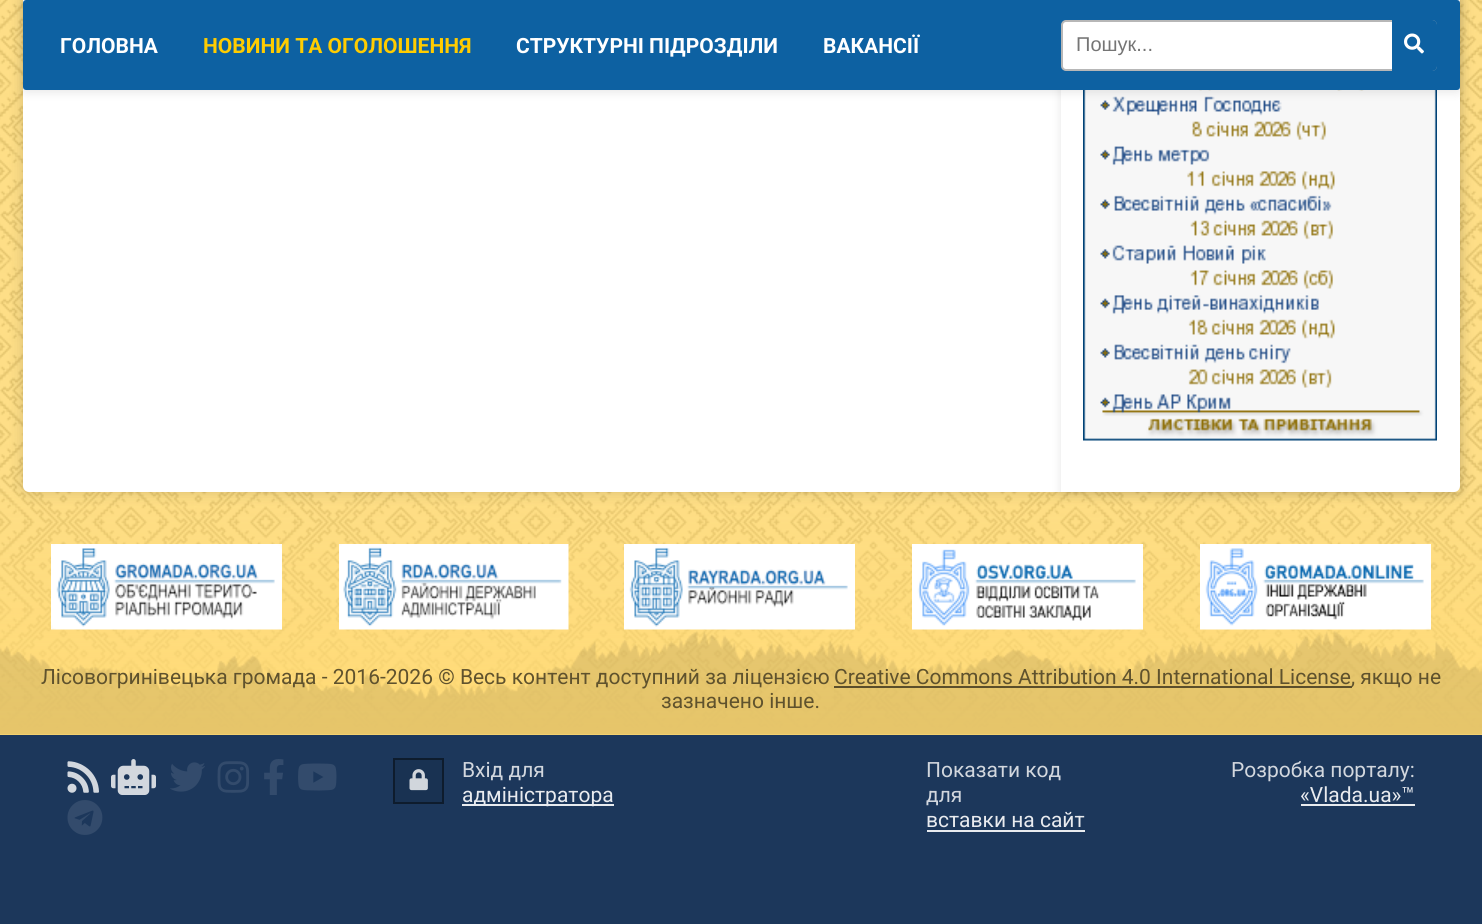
#include <cairo.h>
#include <math.h>
#include <stddef.h>


static void set_color(cairo_t *cr, unsigned color) {
    cairo_set_source_rgb(cr, (color >> 16) / 255.0, (color >> 8 & 255) / 255.0, (color & 255) / 255.0);
}

static void draw_text(cairo_t *cr, double x, double y, const char *s, const char *family, double size, int italic, int bold, unsigned color) {
    cairo_select_font_face(cr, family, italic ? CAIRO_FONT_SLANT_ITALIC : CAIRO_FONT_SLANT_NORMAL,
        bold ? CAIRO_FONT_WEIGHT_BOLD : CAIRO_FONT_WEIGHT_NORMAL);
    cairo_set_font_size(cr, size);
    set_color(cr, color);
    cairo_move_to(cr, x, y);
    cairo_show_text(cr, s);
}

static void fill_rect(cairo_t *cr, double x, double y, double w, double h, unsigned color) {
    set_color(cr, color);
    cairo_rectangle(cr, x, y, w, h);
    cairo_fill(cr);
}

static void rounded_rect(cairo_t *cr, double x, double y, double w, double h, double r) {
    cairo_new_sub_path(cr);
    cairo_arc(cr, x + w - r, y + h - r, r, 0, M_PI / 2);
    cairo_arc(cr, x + r, y + h - r, r, M_PI / 2, M_PI);
    cairo_arc(cr, x + r, y + r, r, M_PI, 1.5 * M_PI);
    cairo_arc(cr, x + w - r, y + r, r, 1.5 * M_PI, 2 * M_PI);
    cairo_close_path(cr);
}

static void draw_shadow(cairo_t *cr, double x, double y, double w, double h, double r, double blur, double alpha) {
    cairo_push_group_with_content(cr, CAIRO_CONTENT_ALPHA);
    cairo_set_operator(cr, CAIRO_OPERATOR_SOURCE);
    for (int i = 15; i >= -15 && fmin(w, h) + blur * i / 3 > 0; i -= 2) {
        double e = blur * i / 6;
        cairo_set_source_rgba(cr, 0, 0, 0, alpha * erfc((i - 1) / 8.5) / 2);
        rounded_rect(cr, x - e, y - e, w + 2 * e, h + 2 * e, fmax(0, fmin(r + e + blur * .6, fmin(w, h) / 2 + e)));
        cairo_fill(cr);
    }
    cairo_pattern_t *soft = cairo_pop_group(cr);
    cairo_mask(cr, soft);
    cairo_pattern_destroy(soft);
}

static void draw_image(cairo_t *cr, const char *path, double x, double y, double w, double h) {
    cairo_surface_t *image = cairo_image_surface_create_from_png(path);
    cairo_save(cr);
    cairo_set_source_surface(cr, image, x, y);
    cairo_rectangle(cr, x, y, w, h);
    cairo_fill(cr);
    cairo_restore(cr);
    cairo_surface_destroy(image);
}

int main(void) {
    cairo_surface_t *surface = cairo_image_surface_create(CAIRO_FORMAT_RGB24, 1482, 924);
    cairo_t *cr = cairo_create(surface);
    cairo_font_options_t *options = cairo_font_options_create();
    cairo_font_options_set_hint_metrics(options, CAIRO_HINT_METRICS_OFF);
    cairo_font_options_set_hint_style(options, CAIRO_HINT_STYLE_NONE);
    cairo_set_font_options(cr, options);
    cairo_set_miter_limit(cr, 4);
    cairo_pattern_t *gradient;
    set_color(cr, 0xFFDA75);
    cairo_paint(cr);
    draw_image(cr, "assets/img1.png", 0, 0, 1482, 733);
    gradient = cairo_pattern_create_linear(741, 469, 741, 735);
    cairo_pattern_add_color_stop_rgba(gradient, 0, 1, 0.855, 0.459, 0);
    cairo_pattern_add_color_stop_rgba(gradient, 1, 1, 0.855, 0.459, 1);
    cairo_set_source(cr, gradient);
    cairo_pattern_destroy(gradient);
    cairo_rectangle(cr, 0, 492, 1482, 241);
    cairo_fill(cr);
    set_color(cr, 0x000000);
    draw_shadow(cr, 23, -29, 1437, 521, 6, 7.5, 0.15);
    set_color(cr, 0xFFFFFF);
    rounded_rect(cr, 23, -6, 1437, 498, 6);
    cairo_fill(cr);
    cairo_save(cr);
    cairo_set_fill_rule(cr, CAIRO_FILL_RULE_EVEN_ODD);
    cairo_new_path(cr);
    cairo_move_to(cr, 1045, 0);
    cairo_line_to(cr, 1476, 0);
    cairo_line_to(cr, 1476, 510);
    cairo_line_to(cr, 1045, 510);
    cairo_close_path(cr);
    cairo_move_to(cr, 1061, -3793);
    cairo_line_to(cr, 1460, -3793);
    cairo_line_to(cr, 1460, 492);
    cairo_line_to(cr, 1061, 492);
    cairo_close_path(cr);
    cairo_clip(cr);
    set_color(cr, 0x000000);
    draw_shadow(cr, 1061, -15, 399, 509, 0, 5, 0.1);
    cairo_restore(cr);
    draw_image(cr, "assets/img2.png", 1083, 90, 354, 351);
    set_color(cr, 0x000000);
    draw_shadow(cr, 23, 2, 1437, 90, 3, 5, 0.1);
    set_color(cr, 0x0D61A2);
    rounded_rect(cr, 23, 0, 1437, 90, 3);
    cairo_fill(cr);
    draw_text(cr, 60, 53, "ГОЛОВНА", "Roboto", 21, 0, 1, 0xFFFFFF);
    draw_text(cr, 203, 53, "НОВИНИ ТА ОГОЛОШЕННЯ", "Roboto", 21, 0, 1, 0xFFCC00);
    draw_text(cr, 516, 53, "СТРУКТУРНІ ПІДРОЗДІЛИ", "Roboto", 21, 0, 1, 0xFFFFFF);
    draw_text(cr, 823, 53, "ВАКАНСІЇ", "Roboto", 21, 0, 1, 0xFFFFFF);
    rounded_rect(cr, 1062, 21, 374, 49, 4);
    cairo_fill_preserve(cr);
    set_color(cr, 0xB7B7B7);
    cairo_stroke(cr);
    draw_text(cr, 1076, 51, "Пошук...", "Liberation Sans", 20, 0, 0, 0x757575);
    set_color(cr, 0x0D61A2);
    cairo_new_path(cr);
    cairo_move_to(cr, 1392, 20);
    cairo_line_to(cr, 1432, 20);
    cairo_curve_to(cr, 1435, 20, 1437, 22, 1437, 25);
    cairo_line_to(cr, 1437, 66);
    cairo_curve_to(cr, 1437, 69, 1435, 71, 1432, 71);
    cairo_line_to(cr, 1392, 71);
    cairo_close_path(cr);
    cairo_fill(cr);
    draw_image(cr, "assets/img3.png", 1404, 33, 20, 21);
    draw_image(cr, "assets/img4.png", 0, 631, 1482, 104);
    draw_image(cr, "assets/img5.png", 51, 544, 231, 86);
    draw_image(cr, "assets/img6.png", 339, 544, 230, 86);
    draw_image(cr, "assets/img7.png", 624, 544, 231, 86);
    draw_image(cr, "assets/img8.png", 912, 544, 231, 86);
    draw_image(cr, "assets/img9.png", 1200, 544, 231, 86);
    draw_text(cr, 41, 684, "Лісовогринівецька громада - 2016-2026 © Весь контент доступний за ліцензією", "Roboto", 21, 0, 0, 0x5F522D);
    draw_text(cr, 834, 684, "Creative Commons Attribution 4.0 International License", "Roboto", 21, 0, 0, 0x5F522D);
    cairo_set_source_rgba(cr, 0, 0, 0, 0.6);
    cairo_rectangle(cr, 834, 686, 518, 2);
    cairo_fill(cr);
    draw_text(cr, 1351, 684, ", якщо не", "Roboto", 21, 0, 0, 0x5F522D);
    draw_text(cr, 661, 708, "зазначено інше.", "Roboto", 21, 0, 0, 0x5F522D);
    fill_rect(cr, 0, 735, 1482, 189, 0x1C375B);
    draw_image(cr, "assets/img10.png", 67, 761, 32, 32);
    draw_image(cr, "assets/img11.png", 111, 759, 45, 36);
    draw_image(cr, "assets/img12.png", 170, 762, 35, 30);
    draw_image(cr, "assets/img13.png", 217, 761, 32, 32);
    draw_image(cr, "assets/img14.png", 264, 759, 20, 36);
    draw_image(cr, "assets/img15.png", 298, 763, 39, 28);
    draw_image(cr, "assets/img16.png", 67, 800, 36, 35);
    set_color(cr, 0x193252);
    cairo_rectangle(cr, 394, 759, 49, 44);
    cairo_fill_preserve(cr);
    set_color(cr, 0x0E1C2D);
    cairo_stroke(cr);
    draw_image(cr, "assets/img17.png", 409, 769, 19, 22);
    draw_text(cr, 462, 777, "Вхід для", "Roboto", 21, 0, 0, 0xD2D7DE);
    fill_rect(cr, 462, 804, 152, 2, 0xE8EBEF);
    draw_text(cr, 462, 802, "адміністратора", "Roboto", 21, 0, 0, 0xE9EBEF);
    draw_text(cr, 926, 777, "Показати код", "Roboto", 21, 0, 0, 0xD2D7DE);
    draw_text(cr, 926, 802, "для", "Roboto", 21, 0, 0, 0xD2D7DE);
    draw_text(cr, 926, 827, "вставки на сайт", "Roboto", 21, 0, 0, 0xE9EBEF);
    fill_rect(cr, 927, 830, 158, 2, 0xE8EBEF);
    draw_text(cr, 1231, 777, "Розробка порталу:", "Roboto", 21, 0, 0, 0xD2D7DE);
    draw_text(cr, 1300, 802, "«Vlada.ua»™", "Roboto", 21, 0, 0, 0xE9EBEF);
    fill_rect(cr, 1301, 804, 114, 2, 0xE8EBEF);
    cairo_surface_write_to_png(surface, "output.png");
    cairo_font_options_destroy(options);
    cairo_destroy(cr);
    cairo_surface_destroy(surface);
    return 0;
}
